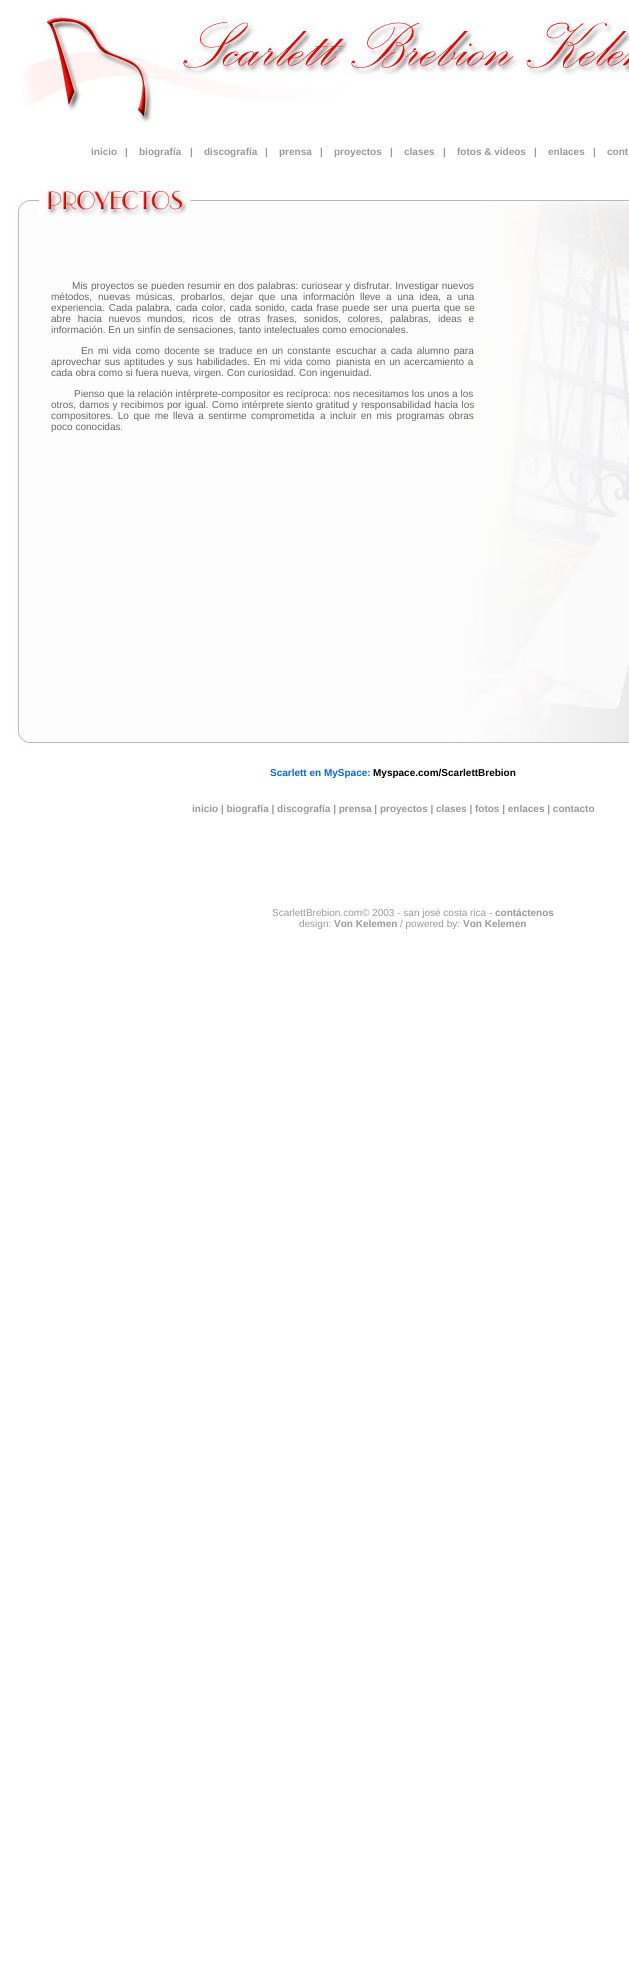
#include <cairo.h>
#include <math.h>
#include <stddef.h>


static void set_color(cairo_t *cr, unsigned color) {
    cairo_set_source_rgb(cr, (color >> 16) / 255.0, (color >> 8 & 255) / 255.0, (color & 255) / 255.0);
}

static void draw_text(cairo_t *cr, double x, double y, const char *s, const char *family, double size, int italic, int bold, unsigned color) {
    cairo_select_font_face(cr, family, italic ? CAIRO_FONT_SLANT_ITALIC : CAIRO_FONT_SLANT_NORMAL,
        bold ? CAIRO_FONT_WEIGHT_BOLD : CAIRO_FONT_WEIGHT_NORMAL);
    cairo_set_font_size(cr, size);
    set_color(cr, color);
    cairo_move_to(cr, x, y);
    cairo_show_text(cr, s);
}

static void draw_spaced(cairo_t *cr, double x, double y, const char *s, double letter, double word) {
    cairo_move_to(cr, x, y);
    while (*s) {
        char ch[5] = {0};
        int n = 0;
        do ch[n++] = *s++; while ((*s & 0xC0) == 0x80);
        cairo_show_text(cr, ch);
        cairo_rel_move_to(cr, letter + word * (*ch == ' '), 0);
    }
}

static void draw_image(cairo_t *cr, const char *path, double x, double y, double w, double h) {
    cairo_surface_t *image = cairo_image_surface_create_from_png(path);
    cairo_save(cr);
    cairo_set_source_surface(cr, image, x, y);
    cairo_rectangle(cr, x, y, w, h);
    cairo_fill(cr);
    cairo_restore(cr);
    cairo_surface_destroy(image);
}

int main(void) {
    cairo_surface_t *surface = cairo_image_surface_create(CAIRO_FORMAT_RGB24, 629, 1987);
    cairo_t *cr = cairo_create(surface);
    cairo_font_options_t *options = cairo_font_options_create();
    cairo_font_options_set_hint_metrics(options, CAIRO_HINT_METRICS_OFF);
    cairo_font_options_set_hint_style(options, CAIRO_HINT_STYLE_NONE);
    cairo_set_font_options(cr, options);
    cairo_set_miter_limit(cr, 4);
    set_color(cr, 0xFFFFFF);
    cairo_paint(cr);
    draw_image(cr, "assets/img1.png", 22, 11, 607, 114);
    draw_text(cr, 91, 155, "inicio", "Liberation Sans", 10, 0, 1, 0x999999);
    draw_text(cr, 125, 155, "|", "Liberation Sans", 10, 0, 1, 0x999999);
    draw_text(cr, 139, 155, "biografía", "Liberation Sans", 10, 0, 1, 0x999999);
    draw_text(cr, 190, 155, "|", "Liberation Sans", 10, 0, 1, 0x999999);
    draw_text(cr, 204, 155, "discografía", "Liberation Sans", 10, 0, 1, 0x999999);
    draw_text(cr, 265, 155, "|", "Liberation Sans", 10, 0, 1, 0x999999);
    draw_text(cr, 279, 155, "prensa", "Liberation Sans", 10, 0, 1, 0x999999);
    draw_text(cr, 320, 155, "|", "Liberation Sans", 10, 0, 1, 0x999999);
    draw_text(cr, 334, 155, "proyectos", "Liberation Sans", 10, 0, 1, 0x999999);
    draw_text(cr, 390, 155, "|", "Liberation Sans", 10, 0, 1, 0x999999);
    draw_text(cr, 404, 155, "clases", "Liberation Sans", 10, 0, 1, 0x999999);
    draw_text(cr, 443, 155, "|", "Liberation Sans", 10, 0, 1, 0x999999);
    draw_text(cr, 457, 155, "fotos & videos", "Liberation Sans", 10, 0, 1, 0x999999);
    draw_text(cr, 534, 155, "|", "Liberation Sans", 10, 0, 1, 0x999999);
    draw_text(cr, 548, 155, "enlaces", "Liberation Sans", 10, 0, 1, 0x999999);
    draw_text(cr, 593, 155, "|", "Liberation Sans", 10, 0, 1, 0x999999);
    draw_text(cr, 607, 155, "cont", "Liberation Sans", 10, 0, 1, 0x999999);
    draw_image(cr, "assets/img2.png", 14, 189, 615, 558);
    draw_text(cr, 72, 289, "Mis", "Liberation Sans", 10, 0, 0, 0x666666);
    draw_spaced(cr, 91, 289, "proyectos se pueden resumir en dos palabras: curiosear y disfrutar. Investigar nuevos", 0, 0.25);
    draw_text(cr, 51, 300, "métodos,", "Liberation Sans", 10, 0, 0, 0x666666);
    draw_spaced(cr, 98, 300, "nuevas músicas, probarlos, dejar que una información", 0, 2.75);
    draw_spaced(cr, 360, 300, "lleve a una idea, a una", 0, 2.75);
    draw_spaced(cr, 51, 311, "experiencia. Cada", 0, 1);
    draw_spaced(cr, 136, 311, "palabra, cada color, cada sonido, cada frase", 0, 1);
    draw_spaced(cr, 342, 311, "puede ser una puerta que se", 0, 1);
    draw_spaced(cr, 51, 322, "abre hacia nuevos", 0, 4);
    draw_spaced(cr, 147, 322, "mundos, ricos de otras frases, sonidos, colores,", 0, 4);
    draw_spaced(cr, 390, 322, "palabras, ideas e", 0, 4);
    draw_text(cr, 51, 333, "información. En un sinfín de sensaciones, tanto intelectuales como emocionales.", "Liberation Sans", 10, 0, 0, 0x666666);
    draw_text(cr, 81, 354, "En", "Liberation Sans", 10, 0, 0, 0x666666);
    draw_spaced(cr, 98, 354, "mi vida como docente se traduce en un constante", 0, 1.5);
    draw_spaced(cr, 336, 354, "escuchar a cada alumno para", 0, 1.5);
    draw_spaced(cr, 51, 365, "aprovechar sus", 0, 1);
    draw_spaced(cr, 124, 365, "aptitudes y sus habilidades. En mi vida como", 0, 1);
    draw_spaced(cr, 336, 365, "pianista en un acercamiento a", 0, 1);
    draw_text(cr, 51, 376, "cada obra como si fuera nueva, virgen. Con curiosidad. Con ingenuidad.", "Liberation Sans", 10, 0, 0, 0x666666);
    draw_spaced(cr, 74, 397, "Pienso que la relación intérprete-compositor es recíproca: nos necesitamos los unos a los", 0, 0.1);
    draw_spaced(cr, 51, 408, "otros, damos y recibimos por igual. Como intérprete", 0, 0.5);
    draw_spaced(cr, 286, 408, "siento gratitud y responsabilidad hacia los", 0, 0.5);
    draw_spaced(cr, 51, 419, "compositores. Lo que me lleva a sentirme comprometida", 0, 1.75);
    draw_spaced(cr, 320, 419, "a incluir en mis programas obras", 0, 1.75);
    draw_text(cr, 51, 430, "poco conocidas.", "Liberation Sans", 10, 0, 0, 0x666666);
    draw_text(cr, 270, 776, "Scarlett en MySpace:", "Liberation Sans", 10, 0, 1, 0x0066FF);
    draw_text(cr, 373, 776, "Myspace.com/ScarlettBrebion", "Liberation Sans", 10, 0, 1, 0x000000);
    draw_text(cr, 192, 812, "inicio | biografía | discografía | prensa | proyectos | clases | fotos | enlaces | contacto", "Liberation Sans", 10, 0, 1, 0x999999);
    draw_text(cr, 272, 916, "ScarlettBrebion.com© 2003 - san josé costa rica -", "Liberation Sans", 10, 0, 0, 0x999999);
    draw_text(cr, 495, 916, "contáctenos", "Liberation Sans", 10, 0, 1, 0x999999);
    draw_text(cr, 299, 927, "design:", "Liberation Sans", 10, 0, 0, 0x999999);
    draw_text(cr, 334, 927, "Von Kelemen", "Liberation Sans", 10, 0, 1, 0x999999);
    draw_text(cr, 400, 927, "/ powered by:", "Liberation Sans", 10, 0, 0, 0x999999);
    draw_text(cr, 463, 927, "Von Kelemen", "Liberation Sans", 10, 0, 1, 0x999999);
    cairo_surface_write_to_png(surface, "output.png");
    cairo_font_options_destroy(options);
    cairo_destroy(cr);
    cairo_surface_destroy(surface);
    return 0;
}
